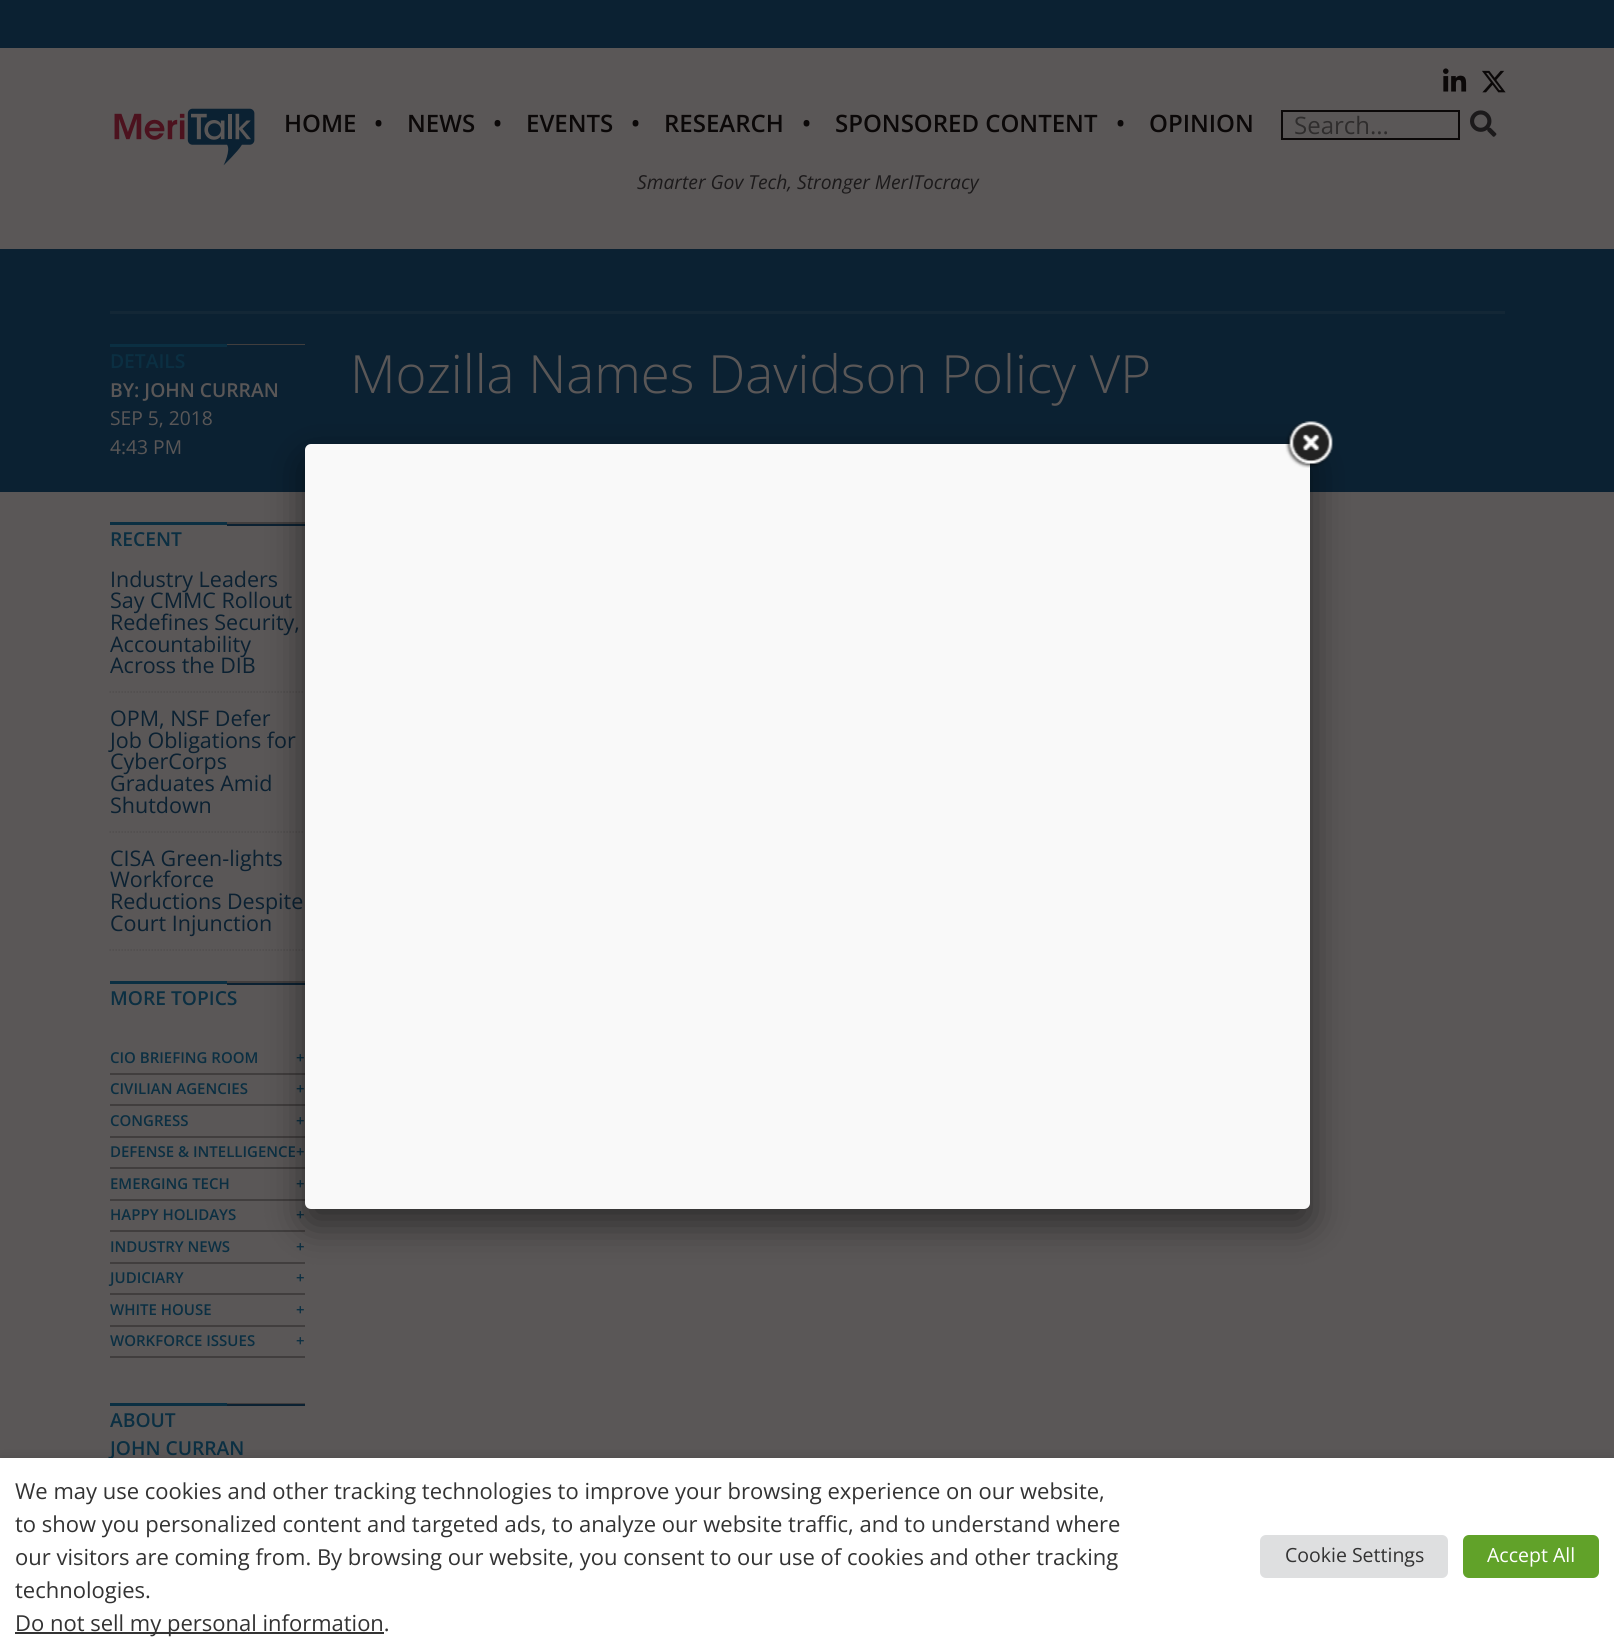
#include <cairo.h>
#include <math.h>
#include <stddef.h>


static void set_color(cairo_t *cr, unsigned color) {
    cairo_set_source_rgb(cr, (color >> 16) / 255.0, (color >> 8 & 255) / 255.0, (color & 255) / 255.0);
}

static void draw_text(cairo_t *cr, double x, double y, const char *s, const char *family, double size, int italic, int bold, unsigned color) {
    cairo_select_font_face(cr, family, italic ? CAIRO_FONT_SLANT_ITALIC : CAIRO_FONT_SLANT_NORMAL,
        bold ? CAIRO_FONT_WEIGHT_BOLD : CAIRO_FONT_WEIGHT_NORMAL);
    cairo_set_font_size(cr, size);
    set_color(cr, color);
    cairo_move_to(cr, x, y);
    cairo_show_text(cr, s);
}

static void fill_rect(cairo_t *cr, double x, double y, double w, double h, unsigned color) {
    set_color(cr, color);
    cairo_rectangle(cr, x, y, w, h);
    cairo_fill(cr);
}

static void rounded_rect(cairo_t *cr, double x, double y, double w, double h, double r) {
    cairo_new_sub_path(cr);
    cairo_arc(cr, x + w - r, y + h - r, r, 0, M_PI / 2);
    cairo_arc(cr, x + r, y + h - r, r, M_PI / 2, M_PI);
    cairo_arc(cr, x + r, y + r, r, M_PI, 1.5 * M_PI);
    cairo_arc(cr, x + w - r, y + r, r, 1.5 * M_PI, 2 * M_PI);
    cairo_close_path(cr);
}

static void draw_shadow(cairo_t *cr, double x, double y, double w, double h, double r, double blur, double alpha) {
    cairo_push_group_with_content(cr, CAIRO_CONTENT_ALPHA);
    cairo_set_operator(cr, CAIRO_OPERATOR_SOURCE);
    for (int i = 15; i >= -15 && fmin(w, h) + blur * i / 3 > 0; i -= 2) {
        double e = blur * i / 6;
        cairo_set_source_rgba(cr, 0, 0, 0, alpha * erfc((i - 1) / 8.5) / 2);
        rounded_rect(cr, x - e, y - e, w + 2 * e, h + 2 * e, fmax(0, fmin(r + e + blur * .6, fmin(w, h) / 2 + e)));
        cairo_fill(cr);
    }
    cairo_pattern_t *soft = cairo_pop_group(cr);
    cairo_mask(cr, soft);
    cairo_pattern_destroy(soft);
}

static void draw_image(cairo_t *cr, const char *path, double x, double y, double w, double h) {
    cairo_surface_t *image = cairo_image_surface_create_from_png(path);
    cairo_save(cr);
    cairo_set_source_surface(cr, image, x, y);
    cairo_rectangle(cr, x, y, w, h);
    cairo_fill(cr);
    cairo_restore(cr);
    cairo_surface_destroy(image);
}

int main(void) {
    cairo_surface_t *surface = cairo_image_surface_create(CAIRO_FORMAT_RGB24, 1614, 1652);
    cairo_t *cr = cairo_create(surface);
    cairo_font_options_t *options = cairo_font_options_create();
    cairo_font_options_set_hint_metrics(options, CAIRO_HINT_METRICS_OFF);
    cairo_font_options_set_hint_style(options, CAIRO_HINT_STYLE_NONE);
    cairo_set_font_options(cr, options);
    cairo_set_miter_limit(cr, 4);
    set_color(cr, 0x5A5757);
    cairo_paint(cr);
    fill_rect(cr, 0, 0, 1614, 48, 0x0B2132);
    draw_image(cr, "assets/img1.png", 114, 108, 141, 58);
    draw_text(cr, 284, 132, "HOME", "Open Sans SemiBold", 24, 0, 0, 0x0B0808);
    draw_text(cr, 374, 132, "•", "Open Sans SemiBold", 24, 0, 0, 0x0B0808);
    draw_text(cr, 407, 132, "NEWS", "Open Sans SemiBold", 24, 0, 0, 0x0B0808);
    draw_text(cr, 493, 132, "•", "Open Sans SemiBold", 24, 0, 0, 0x0B0808);
    draw_text(cr, 526, 132, "EVENTS", "Open Sans SemiBold", 24, 0, 0, 0x0B0808);
    draw_text(cr, 631, 132, "•", "Open Sans SemiBold", 24, 0, 0, 0x0B0808);
    draw_text(cr, 664, 132, "RESEARCH", "Open Sans SemiBold", 24, 0, 0, 0x0B0808);
    draw_text(cr, 802, 132, "•", "Open Sans SemiBold", 24, 0, 0, 0x0B0808);
    draw_text(cr, 835, 132, "SPONSORED CONTENT", "Open Sans SemiBold", 24, 0, 0, 0x0B0808);
    draw_text(cr, 1116, 132, "•", "Open Sans SemiBold", 24, 0, 0, 0x0B0808);
    draw_text(cr, 1149, 132, "OPINION", "Open Sans SemiBold", 24, 0, 0, 0x0B0808);
    draw_image(cr, "assets/img2.png", 1443, 68, 24, 24);
    draw_image(cr, "assets/img3.png", 1482, 70, 24, 23);
    cairo_rectangle(cr, 1282, 111, 177, 28);
    cairo_stroke(cr);
    draw_text(cr, 1294, 134, "Search...", "Open Sans", 24, 0, 0, 0x2F2D2D);
    draw_image(cr, "assets/img4.png", 1470, 110, 27, 27);
    draw_text(cr, 637, 189, "Smarter Gov Tech, Stronger MerITocracy", "Open Sans", 19.25, 1, 0, 0x1C1A1B);
    fill_rect(cr, 0, 249, 1614, 243, 0x0B2132);
    fill_rect(cr, 110, 311, 1395, 3, 0x132736);
    fill_rect(cr, 110, 344, 117, 3, 0x0B2F42);
    fill_rect(cr, 227, 344, 78, 1, 0x413E3E);
    draw_text(cr, 110, 368, "DETAILS", "Open Sans SemiBold", 19.25, 0, 0, 0x0B2F42);
    draw_text(cr, 110, 397, "BY: JOHN CURRAN", "Open Sans SemiBold", 19.25, 0, 0, 0x5A5757);
    draw_text(cr, 110, 425, "SEP 5, 2018", "Open Sans", 19.25, 0, 0, 0x5A5757);
    draw_text(cr, 110, 454, "4:43 PM", "Open Sans", 19.25, 0, 0, 0x5A5757);
    draw_text(cr, 350, 393, "Mozilla Names Davidson Policy VP", "Open Sans Light", 52.75, 0, 0, 0x5A5757);
    fill_rect(cr, 110, 522, 117, 3, 0x0B2F42);
    fill_rect(cr, 227, 522, 78, 2, 0x413E3E);
    fill_rect(cr, 227, 524, 78, 2, 0x0B2132);
    draw_text(cr, 110, 546, "RECENT", "Open Sans SemiBold", 19.25, 0, 0, 0x0B2F42);
    cairo_new_path(cr);
    cairo_move_to(cr, 109.5, 692);
    cairo_line_to(cr, 304.5, 692);
    set_color(cr, 0x514E4E);
    cairo_set_line_width(cr, 1.5);
    cairo_set_dash(cr, (double[]){1.5, 1.5}, 2, 0);
    cairo_stroke(cr);
    draw_text(cr, 110, 587, "Industry Leaders", "Open Sans", 21.5, 0, 0, 0x0B2132);
    draw_text(cr, 110, 608, "Say CMMC Rollout", "Open Sans", 21.5, 0, 0, 0x0B2132);
    draw_text(cr, 110, 630, "Redefines Security,", "Open Sans", 21.5, 0, 0, 0x0B2132);
    draw_text(cr, 110, 652, "Accountability", "Open Sans", 21.5, 0, 0, 0x0B2132);
    draw_text(cr, 110, 673, "Across the DIB", "Open Sans", 21.5, 0, 0, 0x0B2132);
    cairo_new_path(cr);
    cairo_move_to(cr, 109.5, 832);
    cairo_line_to(cr, 304.5, 832);
    set_color(cr, 0x514E4E);
    cairo_stroke(cr);
    draw_text(cr, 110, 726, "OPM, NSF Defer", "Open Sans", 21.5, 0, 0, 0x0B2132);
    draw_text(cr, 110, 748, "Job Obligations for", "Open Sans", 21.5, 0, 0, 0x0B2132);
    draw_text(cr, 110, 769, "CyberCorps", "Open Sans", 21.5, 0, 0, 0x0B2132);
    draw_text(cr, 110, 791, "Graduates Amid", "Open Sans", 21.5, 0, 0, 0x0B2132);
    draw_text(cr, 110, 813, "Shutdown", "Open Sans", 21.5, 0, 0, 0x0B2132);
    cairo_new_path(cr);
    cairo_move_to(cr, 109.5, 950);
    cairo_line_to(cr, 304.5, 950);
    set_color(cr, 0x514E4E);
    cairo_stroke(cr);
    draw_text(cr, 110, 866, "CISA Green-lights", "Open Sans", 21.5, 0, 0, 0x0B2132);
    draw_text(cr, 110, 887, "Workforce", "Open Sans", 21.5, 0, 0, 0x0B2132);
    draw_text(cr, 110, 909, "Reductions Despite", "Open Sans", 21.5, 0, 0, 0x0B2132);
    draw_text(cr, 110, 931, "Court Injunction", "Open Sans", 21.5, 0, 0, 0x0B2132);
    fill_rect(cr, 110, 981, 117, 3, 0x0B2F42);
    fill_rect(cr, 227, 981, 78, 2, 0x413E3E);
    fill_rect(cr, 227, 983, 78, 2, 0x0B2132);
    draw_text(cr, 110, 1005, "MORE TOPICS", "Open Sans SemiBold", 19.25, 0, 0, 0x0B2F42);
    fill_rect(cr, 110, 1073, 195, 2, 0x413E3E);
    draw_text(cr, 110, 1063, "CIO BRIEFING ROOM", "Open Sans SemiBold", 15, 0, 0, 0x0B2F42);
    draw_text(cr, 296, 1063, "+", "Open Sans SemiBold", 15, 0, 0, 0x0B2F42);
    fill_rect(cr, 110, 1104, 195, 2, 0x413E3E);
    draw_text(cr, 110, 1094, "CIVILIAN AGENCIES", "Open Sans SemiBold", 15, 0, 0, 0x0B2F42);
    draw_text(cr, 296, 1094, "+", "Open Sans SemiBold", 15, 0, 0, 0x0B2F42);
    fill_rect(cr, 110, 1136, 195, 2, 0x413E3E);
    draw_text(cr, 110, 1126, "CONGRESS", "Open Sans SemiBold", 15, 0, 0, 0x0B2F42);
    draw_text(cr, 296, 1126, "+", "Open Sans SemiBold", 15, 0, 0, 0x0B2F42);
    fill_rect(cr, 110, 1167, 195, 2, 0x413E3E);
    draw_text(cr, 110, 1157, "DEFENSE & INTELLIGENCE", "Open Sans SemiBold", 15, 0, 0, 0x0B2F42);
    draw_text(cr, 296, 1157, "+", "Open Sans SemiBold", 15, 0, 0, 0x0B2F42);
    fill_rect(cr, 110, 1199, 195, 2, 0x413E3E);
    draw_text(cr, 110, 1189, "EMERGING TECH", "Open Sans SemiBold", 15, 0, 0, 0x0B2F42);
    draw_text(cr, 296, 1189, "+", "Open Sans SemiBold", 15, 0, 0, 0x0B2F42);
    fill_rect(cr, 110, 1230, 195, 2, 0x413E3E);
    draw_text(cr, 110, 1220, "HAPPY HOLIDAYS", "Open Sans SemiBold", 15, 0, 0, 0x0B2F42);
    draw_text(cr, 296, 1220, "+", "Open Sans SemiBold", 15, 0, 0, 0x0B2F42);
    fill_rect(cr, 110, 1262, 195, 2, 0x413E3E);
    draw_text(cr, 110, 1252, "INDUSTRY NEWS", "Open Sans SemiBold", 15, 0, 0, 0x0B2F42);
    draw_text(cr, 296, 1252, "+", "Open Sans SemiBold", 15, 0, 0, 0x0B2F42);
    fill_rect(cr, 110, 1293, 195, 2, 0x413E3E);
    draw_text(cr, 110, 1283, "JUDICIARY", "Open Sans SemiBold", 15, 0, 0, 0x0B2F42);
    draw_text(cr, 296, 1283, "+", "Open Sans SemiBold", 15, 0, 0, 0x0B2F42);
    fill_rect(cr, 110, 1325, 195, 2, 0x413E3E);
    draw_text(cr, 110, 1315, "WHITE HOUSE", "Open Sans SemiBold", 15, 0, 0, 0x0B2F42);
    draw_text(cr, 296, 1315, "+", "Open Sans SemiBold", 15, 0, 0, 0x0B2F42);
    fill_rect(cr, 110, 1356, 195, 2, 0x413E3E);
    draw_text(cr, 110, 1346, "WORKFORCE ISSUES", "Open Sans SemiBold", 15, 0, 0, 0x0B2F42);
    draw_text(cr, 296, 1346, "+", "Open Sans SemiBold", 15, 0, 0, 0x0B2F42);
    fill_rect(cr, 110, 1403, 117, 3, 0x0B2F42);
    fill_rect(cr, 227, 1403, 78, 1, 0x413E3E);
    fill_rect(cr, 227, 1404, 78, 2, 0x0B2132);
    draw_text(cr, 110, 1427, "ABOUT", "Open Sans SemiBold", 19.25, 0, 0, 0x0B2F42);
    draw_text(cr, 110, 1455, "JOHN CURRAN", "Open Sans SemiBold", 19.25, 0, 0, 0x0B2F42);
    set_color(cr, 0x000000);
    draw_shadow(cr, 305, 459, 1005, 765, 6, 19, 0.5);
    set_color(cr, 0xF9F9F9);
    rounded_rect(cr, 305, 444, 1005, 765, 6);
    cairo_fill(cr);
    draw_image(cr, "assets/img5.png", 1285, 421, 48, 47);
    set_color(cr, 0x000000);
    draw_shadow(cr, 0, 1466, 1614, 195, 0, 7.5, 0.5);
    fill_rect(cr, 0, 1458, 1614, 194, 0xFFFFFF);
    draw_text(cr, 15, 1499, "We may use cookies and other tracking technologies to improve your browsing experience on our website,", "Open Sans", 22, 0, 0, 0x333333);
    draw_text(cr, 15, 1532, "to show you personalized content and targeted ads, to analyze our website traffic, and to understand where", "Open Sans", 22, 0, 0, 0x333333);
    draw_text(cr, 15, 1565, "our visitors are coming from. By browsing our website, you consent to our use of cookies and other tracking", "Open Sans", 22, 0, 0, 0x333333);
    draw_text(cr, 15, 1598, "technologies.", "Open Sans", 22, 0, 0, 0x333333);
    fill_rect(cr, 15, 1632, 369, 2, 0x333333);
    draw_text(cr, 15, 1631, "Do not sell my personal information.", "Open Sans", 22, 0, 0, 0x333333);
    set_color(cr, 0xDEDFE0);
    rounded_rect(cr, 1260, 1535, 188, 43, 6);
    cairo_fill(cr);
    draw_text(cr, 1285, 1562, "Cookie Settings", "Open Sans", 19.5, 0, 0, 0x333333);
    set_color(cr, 0x61A229);
    rounded_rect(cr, 1463, 1535, 136, 43, 6);
    cairo_fill(cr);
    draw_text(cr, 1487, 1562, "Accept All", "Open Sans", 19.5, 0, 0, 0xFFFFFF);
    cairo_surface_write_to_png(surface, "output.png");
    cairo_font_options_destroy(options);
    cairo_destroy(cr);
    cairo_surface_destroy(surface);
    return 0;
}
